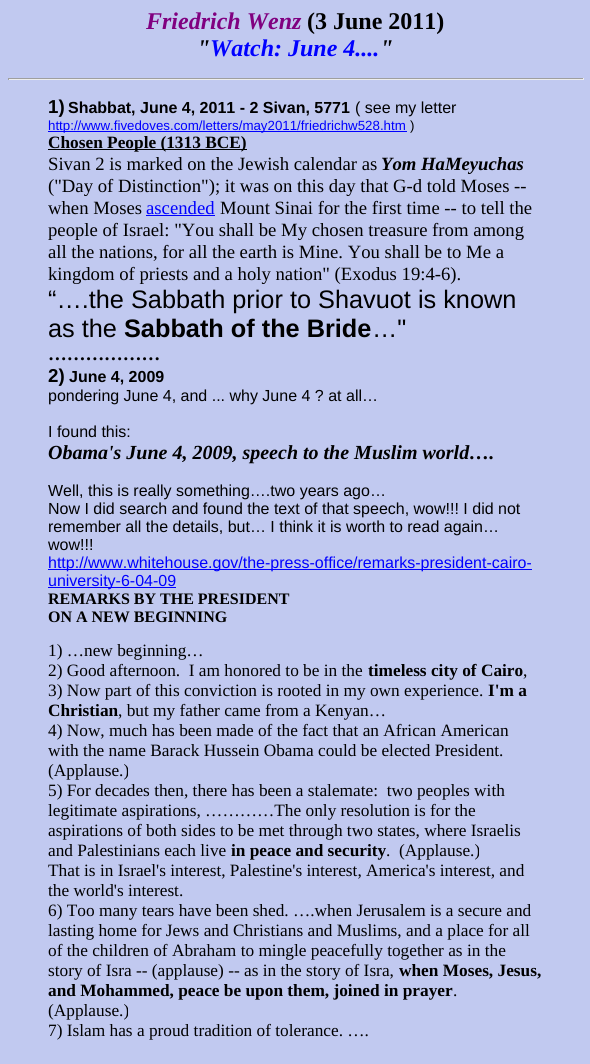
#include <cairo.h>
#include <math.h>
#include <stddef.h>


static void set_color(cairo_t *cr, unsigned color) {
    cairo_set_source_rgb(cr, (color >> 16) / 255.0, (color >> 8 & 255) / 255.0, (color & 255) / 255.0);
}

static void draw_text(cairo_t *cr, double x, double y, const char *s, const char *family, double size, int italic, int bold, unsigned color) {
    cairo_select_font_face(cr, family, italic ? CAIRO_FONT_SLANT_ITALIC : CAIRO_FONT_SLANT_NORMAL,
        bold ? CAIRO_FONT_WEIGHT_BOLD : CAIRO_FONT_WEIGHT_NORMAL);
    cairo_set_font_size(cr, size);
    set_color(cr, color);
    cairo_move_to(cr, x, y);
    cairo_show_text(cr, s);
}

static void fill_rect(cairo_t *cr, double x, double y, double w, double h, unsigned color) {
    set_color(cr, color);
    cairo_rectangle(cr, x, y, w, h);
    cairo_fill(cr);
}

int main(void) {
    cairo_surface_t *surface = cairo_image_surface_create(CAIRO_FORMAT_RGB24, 590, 1064);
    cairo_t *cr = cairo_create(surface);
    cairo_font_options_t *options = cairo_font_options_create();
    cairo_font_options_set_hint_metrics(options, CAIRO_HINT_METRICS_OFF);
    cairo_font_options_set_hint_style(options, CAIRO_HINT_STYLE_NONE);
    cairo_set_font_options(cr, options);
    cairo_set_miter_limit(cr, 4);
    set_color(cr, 0xC1C9F0);
    cairo_paint(cr);
    draw_text(cr, 146, 29, "Friedrich Wenz", "Liberation Serif", 24, 1, 1, 0x800080);
    draw_text(cr, 307, 29, "(3 June 2011)", "Liberation Serif", 24, 0, 1, 0x000000);
    draw_text(cr, 197, 56, "\"", "Liberation Serif", 24, 1, 1, 0x000000);
    draw_text(cr, 210, 56, "Watch: June 4....", "Liberation Serif", 24, 1, 1, 0x0000FF);
    draw_text(cr, 380, 56, "\"", "Liberation Serif", 24, 1, 1, 0x000000);
    fill_rect(cr, 8, 78, 576, 1, 0x9F9F9F);
    fill_rect(cr, 583, 78, 1, 2, 0xEEEEEE);
    fill_rect(cr, 8, 79, 576, 1, 0xEEEEEE);
    fill_rect(cr, 8, 78, 1, 2, 0x9F9F9F);
    draw_text(cr, 48, 113, "1)", "Liberation Sans", 18.7, 0, 1, 0x000000);
    draw_text(cr, 68, 113, "Shabbat, June 4, 2011 - 2 Sivan, 5771", "Liberation Sans", 16, 0, 1, 0x000000);
    draw_text(cr, 355, 113, "( see my letter", "Liberation Sans", 16, 0, 0, 0x000000);
    fill_rect(cr, 48, 131, 359, 1, 0x0000FF);
    draw_text(cr, 48, 130, "http://www.fivedoves.com/letters/may2011/friedrichw528.htm", "Liberation Sans", 13.3, 0, 0, 0x0000FF);
    draw_text(cr, 410, 130, ")", "Liberation Sans", 13.3, 0, 0, 0x000000);
    fill_rect(cr, 48, 149, 199, 1, 0x000000);
    draw_text(cr, 48, 148, "Chosen People (1313 BCE)", "Liberation Serif", 17.3, 0, 1, 0x000000);
    draw_text(cr, 48, 170, "Sivan 2 is marked on the Jewish calendar as", "Liberation Serif", 18.7, 0, 0, 0x000000);
    draw_text(cr, 381, 170, "Yom HaMeyuchas", "Liberation Serif", 18.7, 1, 1, 0x000000);
    draw_text(cr, 48, 192, "(\"Day of Distinction\"); it was on this day that G-d told Moses --", "Liberation Serif", 18.7, 0, 0, 0x000000);
    draw_text(cr, 48, 214, "when Moses", "Liberation Serif", 18.7, 0, 0, 0x000000);
    draw_text(cr, 146, 214, "ascended", "Liberation Serif", 18.7, 0, 0, 0x0000FF);
    fill_rect(cr, 146, 215, 69, 1, 0x0000FF);
    draw_text(cr, 220, 214, "Mount Sinai for the first time -- to tell the", "Liberation Serif", 18.7, 0, 0, 0x000000);
    draw_text(cr, 48, 236, "people of Israel: \"You shall be My chosen treasure from among", "Liberation Serif", 18.7, 0, 0, 0x000000);
    draw_text(cr, 48, 258, "all the nations, for all the earth is Mine. You shall be to Me a", "Liberation Serif", 18.7, 0, 0, 0x000000);
    draw_text(cr, 48, 280, "kingdom of priests and a holy nation\" (Exodus 19:4-6).", "Liberation Serif", 18.7, 0, 0, 0x000000);
    draw_text(cr, 48, 308, "“….the Sabbath prior to Shavuot is known", "Liberation Sans", 25.3, 0, 0, 0x000000);
    draw_text(cr, 48, 337, "as the", "Liberation Sans", 25.3, 0, 0, 0x000000);
    draw_text(cr, 124, 337, "Sabbath of the Bride", "Liberation Sans", 25.3, 0, 1, 0x000000);
    draw_text(cr, 372, 337, "…\"", "Liberation Sans", 25.3, 0, 0, 0x000000);
    draw_text(cr, 48, 360, "………………", "Liberation Serif", 18.7, 0, 1, 0x000000);
    draw_text(cr, 48, 382, "2)", "Liberation Sans", 18.7, 0, 1, 0x000000);
    draw_text(cr, 69, 382, "June 4, 2009", "Liberation Sans", 16, 0, 1, 0x000000);
    draw_text(cr, 48, 401, "pondering June 4, and ... why June 4 ? at all…", "Liberation Sans", 16, 0, 0, 0x000000);
    draw_text(cr, 48, 437, "I found this:", "Liberation Sans", 16, 0, 0, 0x000000);
    draw_text(cr, 48, 459, "Obama's June 4, 2009, speech to the Muslim world….", "Liberation Serif", 20, 1, 1, 0x000000);
    draw_text(cr, 48, 496, "Well, this is really something….two years ago…", "Liberation Sans", 16, 0, 0, 0x000000);
    draw_text(cr, 48, 514, "Now I did search and found the text of that speech, wow!!! I did not", "Liberation Sans", 16, 0, 0, 0x000000);
    draw_text(cr, 48, 532, "remember all the details, but… I think it is worth to read again…", "Liberation Sans", 16, 0, 0, 0x000000);
    draw_text(cr, 48, 550, "wow!!!", "Liberation Sans", 16, 0, 0, 0x000000);
    fill_rect(cr, 48, 569, 484, 1, 0x0000FF);
    draw_text(cr, 48, 568, "http://www.whitehouse.gov/the-press-office/remarks-president-cairo-", "Liberation Sans", 16, 0, 0, 0x0000FF);
    fill_rect(cr, 48, 587, 128, 1, 0x0000FF);
    draw_text(cr, 48, 586, "university-6-04-09", "Liberation Sans", 16, 0, 0, 0x0000FF);
    draw_text(cr, 48, 604, "REMARKS BY THE PRESIDENT", "Liberation Serif", 16, 0, 1, 0x000000);
    draw_text(cr, 48, 622, "ON A NEW BEGINNING", "Liberation Serif", 16, 0, 1, 0x000000);
    draw_text(cr, 48, 656, "1) …new beginning…", "Liberation Serif", 17.3, 0, 0, 0x000000);
    draw_text(cr, 48, 676, "2) Good afternoon.  I am honored to be in the", "Liberation Serif", 17.3, 0, 0, 0x000000);
    draw_text(cr, 368, 676, "timeless city of Cairo", "Liberation Serif", 17.3, 0, 1, 0x000000);
    draw_text(cr, 523, 676, ",", "Liberation Serif", 17.3, 0, 0, 0x000000);
    draw_text(cr, 48, 696, "3) Now part of this conviction is rooted in my own experience.", "Liberation Serif", 17.3, 0, 0, 0x000000);
    draw_text(cr, 488, 696, "I'm a", "Liberation Serif", 17.3, 0, 1, 0x000000);
    draw_text(cr, 48, 716, "Christian", "Liberation Serif", 17.3, 0, 1, 0x000000);
    draw_text(cr, 118, 716, ", but my father came from a Kenyan…", "Liberation Serif", 17.3, 0, 0, 0x000000);
    draw_text(cr, 48, 736, "4) Now, much has been made of the fact that an African American", "Liberation Serif", 17.3, 0, 0, 0x000000);
    draw_text(cr, 48, 756, "with the name Barack Hussein Obama could be elected President.", "Liberation Serif", 17.3, 0, 0, 0x000000);
    draw_text(cr, 48, 776, "(Applause.)", "Liberation Serif", 17.3, 0, 0, 0x000000);
    draw_text(cr, 48, 796, "5) For decades then, there has been a stalemate:  two peoples with", "Liberation Serif", 17.3, 0, 0, 0x000000);
    draw_text(cr, 48, 816, "legitimate aspirations, …………The only resolution is for the", "Liberation Serif", 17.3, 0, 0, 0x000000);
    draw_text(cr, 48, 836, "aspirations of both sides to be met through two states, where Israelis", "Liberation Serif", 17.3, 0, 0, 0x000000);
    draw_text(cr, 48, 856, "and Palestinians each live", "Liberation Serif", 17.3, 0, 0, 0x000000);
    draw_text(cr, 231, 856, "in peace and security", "Liberation Serif", 17.3, 0, 1, 0x000000);
    draw_text(cr, 386, 856, ".  (Applause.)", "Liberation Serif", 17.3, 0, 0, 0x000000);
    draw_text(cr, 48, 876, "That is in Israel's interest, Palestine's interest, America's interest, and", "Liberation Serif", 17.3, 0, 0, 0x000000);
    draw_text(cr, 48, 896, "the world's interest.", "Liberation Serif", 17.3, 0, 0, 0x000000);
    draw_text(cr, 48, 916, "6) Too many tears have been shed. ….when Jerusalem is a secure and", "Liberation Serif", 17.3, 0, 0, 0x000000);
    draw_text(cr, 48, 936, "lasting home for Jews and Christians and Muslims, and a place for all", "Liberation Serif", 17.3, 0, 0, 0x000000);
    draw_text(cr, 48, 956, "of the children of Abraham to mingle peacefully together as in the", "Liberation Serif", 17.3, 0, 0, 0x000000);
    draw_text(cr, 48, 976, "story of Isra -- (applause) -- as in the story of Isra,", "Liberation Serif", 17.3, 0, 0, 0x000000);
    draw_text(cr, 399, 976, "when Moses, Jesus,", "Liberation Serif", 17.3, 0, 1, 0x000000);
    draw_text(cr, 48, 996, "and Mohammed, peace be upon them, joined in prayer", "Liberation Serif", 17.3, 0, 1, 0x000000);
    draw_text(cr, 453, 996, ".", "Liberation Serif", 17.3, 0, 0, 0x000000);
    draw_text(cr, 48, 1016, "(Applause.)", "Liberation Serif", 17.3, 0, 0, 0x000000);
    draw_text(cr, 48, 1036, "7) Islam has a proud tradition of tolerance. ….", "Liberation Serif", 17.3, 0, 0, 0x000000);
    cairo_surface_write_to_png(surface, "output.png");
    cairo_font_options_destroy(options);
    cairo_destroy(cr);
    cairo_surface_destroy(surface);
    return 0;
}
